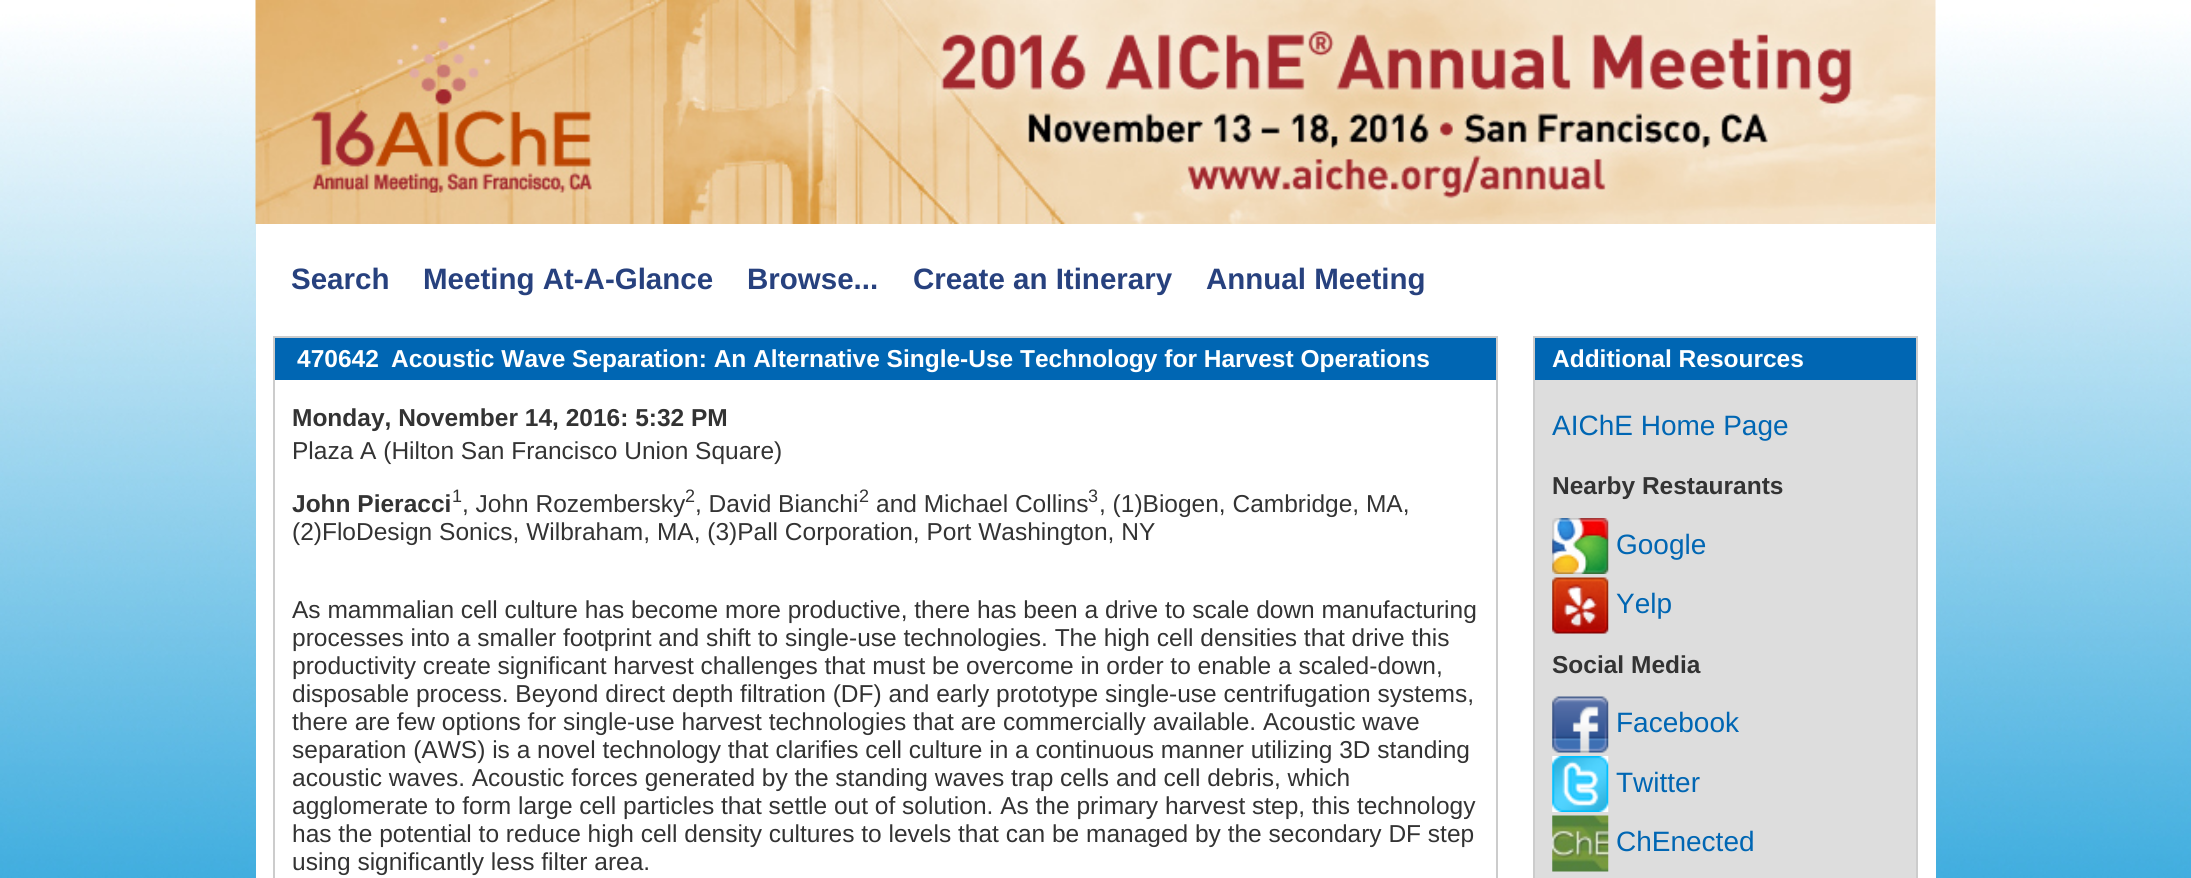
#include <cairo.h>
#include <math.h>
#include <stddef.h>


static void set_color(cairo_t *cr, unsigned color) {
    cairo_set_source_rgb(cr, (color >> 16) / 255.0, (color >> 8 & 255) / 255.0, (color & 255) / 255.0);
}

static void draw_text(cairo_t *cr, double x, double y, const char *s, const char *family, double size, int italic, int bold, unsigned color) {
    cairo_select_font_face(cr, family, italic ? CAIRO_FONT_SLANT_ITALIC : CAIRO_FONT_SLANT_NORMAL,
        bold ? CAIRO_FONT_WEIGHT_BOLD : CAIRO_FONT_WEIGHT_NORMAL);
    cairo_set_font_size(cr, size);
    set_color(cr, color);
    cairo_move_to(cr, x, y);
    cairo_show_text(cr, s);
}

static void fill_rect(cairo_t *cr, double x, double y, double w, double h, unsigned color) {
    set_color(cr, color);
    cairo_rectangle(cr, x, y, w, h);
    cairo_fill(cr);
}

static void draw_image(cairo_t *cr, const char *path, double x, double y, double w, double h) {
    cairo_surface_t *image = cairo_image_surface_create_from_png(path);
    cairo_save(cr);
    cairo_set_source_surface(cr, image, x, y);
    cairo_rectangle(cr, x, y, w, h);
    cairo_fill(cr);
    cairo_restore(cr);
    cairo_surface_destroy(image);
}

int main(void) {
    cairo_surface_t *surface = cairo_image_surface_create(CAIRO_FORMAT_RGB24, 2191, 878);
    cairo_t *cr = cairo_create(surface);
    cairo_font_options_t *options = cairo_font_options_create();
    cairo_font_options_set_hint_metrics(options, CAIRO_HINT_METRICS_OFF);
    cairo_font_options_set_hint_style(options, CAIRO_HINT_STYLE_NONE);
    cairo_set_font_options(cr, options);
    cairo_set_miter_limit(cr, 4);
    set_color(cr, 0xFFFFFF);
    cairo_paint(cr);
    draw_image(cr, "assets/img1.png", 0, 0, 2191, 878);
    fill_rect(cr, 256, 15, 1680, 863, 0xFFFFFF);
    draw_image(cr, "assets/img2.png", 255, 0, 1681, 224);
    draw_text(cr, 291, 289, "Search", "Liberation Sans", 29.5, 0, 1, 0x27417E);
    draw_text(cr, 423, 289, "Meeting At-A-Glance", "Liberation Sans", 29.5, 0, 1, 0x27417E);
    draw_text(cr, 747, 289, "Browse...", "Liberation Sans", 29.5, 0, 1, 0x27417E);
    draw_text(cr, 913, 289, "Create an Itinerary", "Liberation Sans", 29.5, 0, 1, 0x27417E);
    draw_text(cr, 1206, 289, "Annual Meeting", "Liberation Sans", 29.5, 0, 1, 0x27417E);
    cairo_rectangle(cr, 274, 337, 1223, 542);
    set_color(cr, 0xCCCCCC);
    cairo_stroke(cr);
    fill_rect(cr, 275, 338, 1221, 42, 0x0066B3);
    draw_text(cr, 297, 367, "470642", "Liberation Sans", 24.5, 0, 1, 0xFFFFFF);
    draw_text(cr, 391, 367, "Acoustic Wave Separation: An Alternative Single-Use Technology for Harvest Operations", "Liberation Sans", 24.5, 0, 1, 0xFFFFFF);
    draw_text(cr, 292, 426, "Monday, November 14, 2016: 5:32 PM", "Liberation Sans", 24.5, 0, 1, 0x333333);
    draw_text(cr, 292, 459, "Plaza A (Hilton San Francisco Union Square)", "Liberation Sans", 24.5, 0, 0, 0x333333);
    draw_text(cr, 292, 512, "John Pieracci", "Liberation Sans", 24.5, 0, 1, 0x333333);
    draw_text(cr, 452, 502, "1", "Liberation Sans", 18, 0, 0, 0x333333);
    draw_text(cr, 462, 512, ", John Rozembersky", "Liberation Sans", 24.5, 0, 0, 0x333333);
    draw_text(cr, 685, 502, "2", "Liberation Sans", 18, 0, 0, 0x333333);
    draw_text(cr, 695, 512, ", David Bianchi", "Liberation Sans", 24.5, 0, 0, 0x333333);
    draw_text(cr, 859, 502, "2", "Liberation Sans", 18, 0, 0, 0x333333);
    draw_text(cr, 876, 512, "and Michael Collins", "Liberation Sans", 24.5, 0, 0, 0x333333);
    draw_text(cr, 1088, 502, "3", "Liberation Sans", 18, 0, 0, 0x333333);
    draw_text(cr, 1099, 512, ", (1)Biogen, Cambridge, MA,", "Liberation Sans", 24.5, 0, 0, 0x333333);
    draw_text(cr, 292, 540, "(2)FloDesign Sonics, Wilbraham, MA, (3)Pall Corporation, Port Washington, NY", "Liberation Sans", 24.5, 0, 0, 0x333333);
    draw_text(cr, 292, 618, "As mammalian cell culture has become more productive, there has been a drive to scale down manufacturing", "Liberation Sans", 24.5, 0, 0, 0x333333);
    draw_text(cr, 292, 646, "processes into a smaller footprint and shift to single-use technologies. The high cell densities that drive this", "Liberation Sans", 24.5, 0, 0, 0x333333);
    draw_text(cr, 292, 674, "productivity create significant harvest challenges that must be overcome in order to enable a scaled-down,", "Liberation Sans", 24.5, 0, 0, 0x333333);
    draw_text(cr, 292, 702, "disposable process. Beyond direct depth filtration (DF) and early prototype single-use centrifugation systems,", "Liberation Sans", 24.5, 0, 0, 0x333333);
    draw_text(cr, 292, 730, "there are few options for single-use harvest technologies that are commercially available. Acoustic wave", "Liberation Sans", 24.5, 0, 0, 0x333333);
    draw_text(cr, 292, 758, "separation (AWS) is a novel technology that clarifies cell culture in a continuous manner utilizing 3D standing", "Liberation Sans", 24.5, 0, 0, 0x333333);
    draw_text(cr, 292, 786, "acoustic waves. Acoustic forces generated by the standing waves trap cells and cell debris, which", "Liberation Sans", 24.5, 0, 0, 0x333333);
    draw_text(cr, 292, 814, "agglomerate to form large cell particles that settle out of solution. As the primary harvest step, this technology", "Liberation Sans", 24.5, 0, 0, 0x333333);
    draw_text(cr, 292, 842, "has the potential to reduce high cell density cultures to levels that can be managed by the secondary DF step", "Liberation Sans", 24.5, 0, 0, 0x333333);
    draw_text(cr, 292, 870, "using significantly less filter area.", "Liberation Sans", 24.5, 0, 0, 0x333333);
    fill_rect(cr, 1535, 380, 381, 498, 0xDDDDDD);
    cairo_rectangle(cr, 1534, 337, 383, 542);
    set_color(cr, 0xCCCCCC);
    cairo_stroke(cr);
    fill_rect(cr, 1535, 338, 381, 42, 0x0066B3);
    draw_text(cr, 1552, 367, "Additional Resources", "Liberation Sans", 24.5, 0, 1, 0xFFFFFF);
    draw_text(cr, 1552, 435, "AIChE Home Page", "Liberation Sans", 28, 0, 0, 0x0066B3);
    draw_text(cr, 1552, 494, "Nearby Restaurants", "Liberation Sans", 24.5, 0, 1, 0x333333);
    draw_image(cr, "assets/img3.png", 1552, 518, 57, 56);
    draw_text(cr, 1616, 554, "Google", "Liberation Sans", 28, 0, 0, 0x0066B3);
    draw_image(cr, "assets/img4.png", 1552, 577, 57, 57);
    draw_text(cr, 1616, 613, "Yelp", "Liberation Sans", 28, 0, 0, 0x0066B3);
    draw_text(cr, 1552, 673, "Social Media", "Liberation Sans", 24.5, 0, 1, 0x333333);
    draw_image(cr, "assets/img5.png", 1552, 696, 57, 57);
    draw_text(cr, 1616, 732, "Facebook", "Liberation Sans", 28, 0, 0, 0x0066B3);
    draw_image(cr, "assets/img6.png", 1552, 756, 57, 56);
    draw_text(cr, 1616, 792, "Twitter", "Liberation Sans", 28, 0, 0, 0x0066B3);
    draw_image(cr, "assets/img7.png", 1552, 815, 57, 57);
    draw_text(cr, 1616, 851, "ChEnected", "Liberation Sans", 28, 0, 0, 0x0066B3);
    cairo_surface_write_to_png(surface, "output.png");
    cairo_font_options_destroy(options);
    cairo_destroy(cr);
    cairo_surface_destroy(surface);
    return 0;
}
